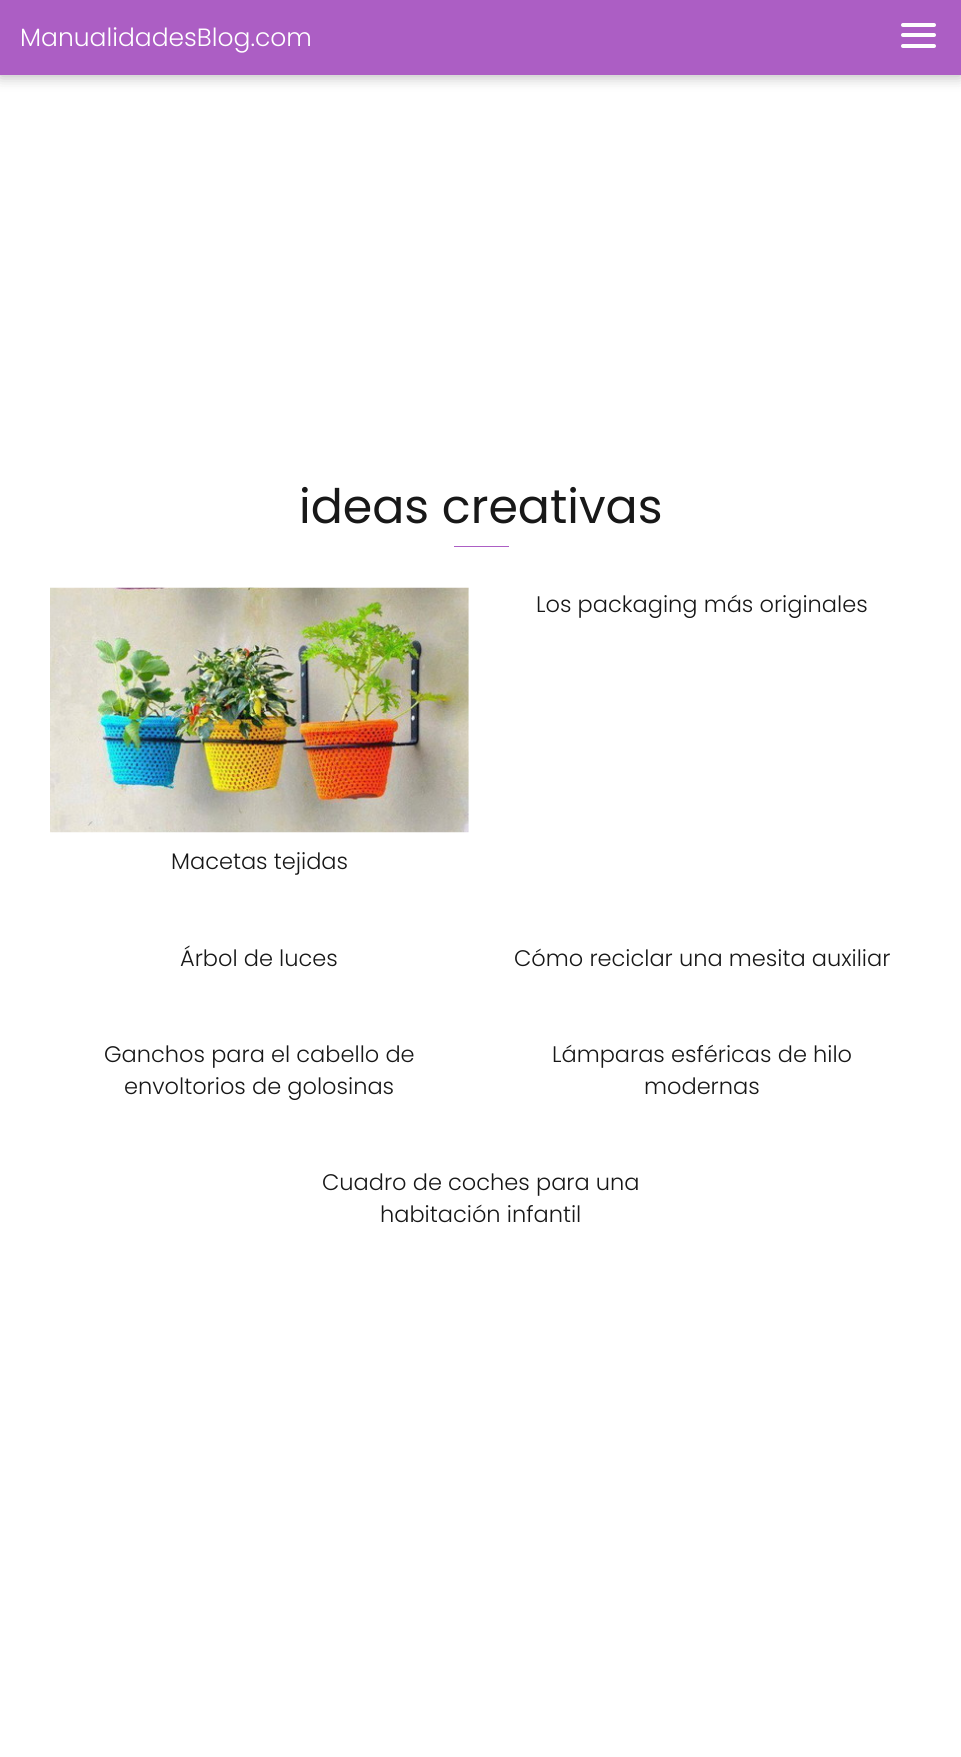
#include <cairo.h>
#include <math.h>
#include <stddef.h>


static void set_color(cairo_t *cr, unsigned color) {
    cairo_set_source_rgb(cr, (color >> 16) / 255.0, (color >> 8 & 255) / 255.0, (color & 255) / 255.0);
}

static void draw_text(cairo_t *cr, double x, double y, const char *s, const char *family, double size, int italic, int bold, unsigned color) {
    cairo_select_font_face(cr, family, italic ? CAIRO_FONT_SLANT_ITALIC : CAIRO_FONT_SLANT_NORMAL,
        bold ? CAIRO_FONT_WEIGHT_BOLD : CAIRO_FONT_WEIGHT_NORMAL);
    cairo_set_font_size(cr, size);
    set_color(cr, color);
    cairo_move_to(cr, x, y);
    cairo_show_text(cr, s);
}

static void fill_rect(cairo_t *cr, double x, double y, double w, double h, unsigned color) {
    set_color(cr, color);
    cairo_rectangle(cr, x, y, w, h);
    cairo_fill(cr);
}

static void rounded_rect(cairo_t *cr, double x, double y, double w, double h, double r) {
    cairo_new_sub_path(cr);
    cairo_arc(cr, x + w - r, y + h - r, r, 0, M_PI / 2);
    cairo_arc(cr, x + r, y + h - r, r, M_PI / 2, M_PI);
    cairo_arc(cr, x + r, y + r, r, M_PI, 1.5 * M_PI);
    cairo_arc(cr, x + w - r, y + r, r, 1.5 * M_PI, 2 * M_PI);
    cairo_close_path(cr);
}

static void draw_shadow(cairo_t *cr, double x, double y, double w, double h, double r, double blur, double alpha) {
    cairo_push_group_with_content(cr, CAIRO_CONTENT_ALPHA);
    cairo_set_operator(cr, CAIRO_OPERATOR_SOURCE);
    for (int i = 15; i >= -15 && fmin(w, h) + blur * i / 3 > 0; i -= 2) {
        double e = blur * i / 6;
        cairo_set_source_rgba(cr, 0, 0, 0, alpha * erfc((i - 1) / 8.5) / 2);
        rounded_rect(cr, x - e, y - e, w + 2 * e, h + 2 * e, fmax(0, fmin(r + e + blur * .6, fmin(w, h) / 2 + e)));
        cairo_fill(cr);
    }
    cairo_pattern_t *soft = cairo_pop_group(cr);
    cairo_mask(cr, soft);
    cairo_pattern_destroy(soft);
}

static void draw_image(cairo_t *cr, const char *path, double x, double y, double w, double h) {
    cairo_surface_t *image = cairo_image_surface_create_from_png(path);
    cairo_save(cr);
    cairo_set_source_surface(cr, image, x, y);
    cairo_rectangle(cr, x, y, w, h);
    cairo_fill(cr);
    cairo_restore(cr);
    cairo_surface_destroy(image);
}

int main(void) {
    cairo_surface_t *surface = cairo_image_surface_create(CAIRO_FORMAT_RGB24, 961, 1757);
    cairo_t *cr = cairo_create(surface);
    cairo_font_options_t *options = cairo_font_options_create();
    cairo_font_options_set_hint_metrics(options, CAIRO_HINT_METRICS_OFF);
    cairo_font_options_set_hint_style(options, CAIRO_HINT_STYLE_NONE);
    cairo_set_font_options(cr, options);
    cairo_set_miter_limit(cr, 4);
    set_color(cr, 0xFFFFFF);
    cairo_paint(cr);
    set_color(cr, 0x000000);
    draw_shadow(cr, 0, 1, 961, 75, 0, 7.5, 0.3);
    fill_rect(cr, 0, 0, 961, 75, 0xAC5EC4);
    draw_text(cr, 20, 46, "ManualidadesBlog.com", "Poppins Light", 25, 0, 0, 0xFFFFFF);
    rounded_rect(cr, 901, 23, 35, 4, 2);
    cairo_fill(cr);
    rounded_rect(cr, 901, 33, 35, 4, 2);
    cairo_fill(cr);
    rounded_rect(cr, 901, 44, 35, 4, 2);
    cairo_fill(cr);
    draw_text(cr, 299, 523, "ideas creativas", "Poppins", 47.5, 0, 0, 0x181818);
    fill_rect(cr, 454, 546, 55, 1, 0xAC5EC4);
    draw_text(cr, 536, 612, "Los packaging más originales", "Poppins Light", 22.5, 0, 0, 0x181818);
    draw_image(cr, "assets/img1.png", 50, 587, 419, 246);
    draw_text(cr, 171, 869, "Macetas tejidas", "Poppins Light", 22.5, 0, 0, 0x181818);
    draw_text(cr, 180, 966, "Árbol de luces", "Poppins Light", 22.5, 0, 0, 0x181818);
    draw_text(cr, 514, 966, "Cómo reciclar una mesita auxiliar", "Poppins Light", 22.5, 0, 0, 0x181818);
    draw_text(cr, 104, 1062, "Ganchos para el cabello de", "Poppins Light", 22.5, 0, 0, 0x181818);
    draw_text(cr, 124, 1094, "envoltorios de golosinas", "Poppins Light", 22.5, 0, 0, 0x181818);
    draw_text(cr, 552, 1062, "Lámparas esféricas de hilo", "Poppins Light", 22.5, 0, 0, 0x181818);
    draw_text(cr, 644, 1094, "modernas", "Poppins Light", 22.5, 0, 0, 0x181818);
    draw_text(cr, 322, 1190, "Cuadro de coches para una", "Poppins Light", 22.5, 0, 0, 0x181818);
    draw_text(cr, 380, 1222, "habitación infantil", "Poppins Light", 22.5, 0, 0, 0x181818);
    cairo_surface_write_to_png(surface, "output.png");
    cairo_font_options_destroy(options);
    cairo_destroy(cr);
    cairo_surface_destroy(surface);
    return 0;
}
